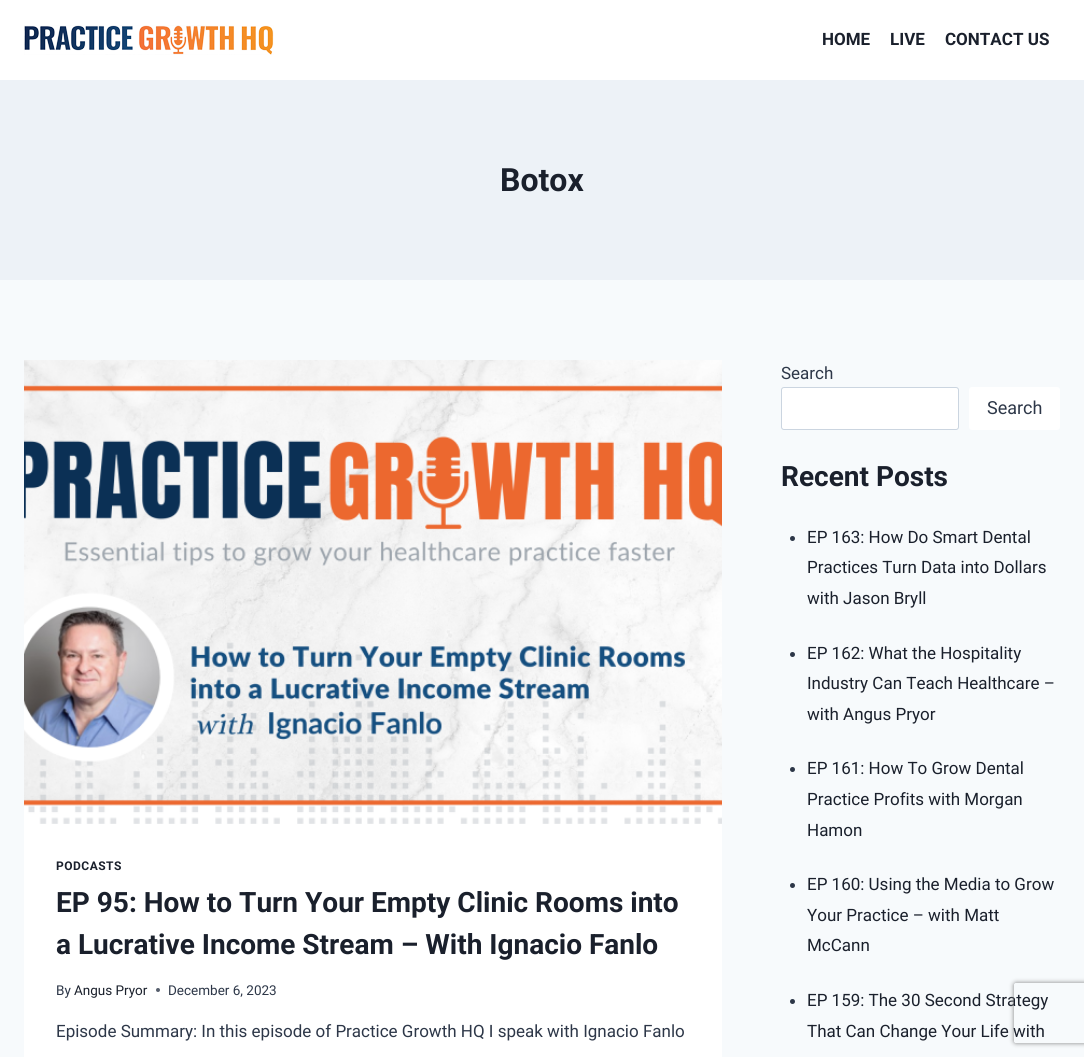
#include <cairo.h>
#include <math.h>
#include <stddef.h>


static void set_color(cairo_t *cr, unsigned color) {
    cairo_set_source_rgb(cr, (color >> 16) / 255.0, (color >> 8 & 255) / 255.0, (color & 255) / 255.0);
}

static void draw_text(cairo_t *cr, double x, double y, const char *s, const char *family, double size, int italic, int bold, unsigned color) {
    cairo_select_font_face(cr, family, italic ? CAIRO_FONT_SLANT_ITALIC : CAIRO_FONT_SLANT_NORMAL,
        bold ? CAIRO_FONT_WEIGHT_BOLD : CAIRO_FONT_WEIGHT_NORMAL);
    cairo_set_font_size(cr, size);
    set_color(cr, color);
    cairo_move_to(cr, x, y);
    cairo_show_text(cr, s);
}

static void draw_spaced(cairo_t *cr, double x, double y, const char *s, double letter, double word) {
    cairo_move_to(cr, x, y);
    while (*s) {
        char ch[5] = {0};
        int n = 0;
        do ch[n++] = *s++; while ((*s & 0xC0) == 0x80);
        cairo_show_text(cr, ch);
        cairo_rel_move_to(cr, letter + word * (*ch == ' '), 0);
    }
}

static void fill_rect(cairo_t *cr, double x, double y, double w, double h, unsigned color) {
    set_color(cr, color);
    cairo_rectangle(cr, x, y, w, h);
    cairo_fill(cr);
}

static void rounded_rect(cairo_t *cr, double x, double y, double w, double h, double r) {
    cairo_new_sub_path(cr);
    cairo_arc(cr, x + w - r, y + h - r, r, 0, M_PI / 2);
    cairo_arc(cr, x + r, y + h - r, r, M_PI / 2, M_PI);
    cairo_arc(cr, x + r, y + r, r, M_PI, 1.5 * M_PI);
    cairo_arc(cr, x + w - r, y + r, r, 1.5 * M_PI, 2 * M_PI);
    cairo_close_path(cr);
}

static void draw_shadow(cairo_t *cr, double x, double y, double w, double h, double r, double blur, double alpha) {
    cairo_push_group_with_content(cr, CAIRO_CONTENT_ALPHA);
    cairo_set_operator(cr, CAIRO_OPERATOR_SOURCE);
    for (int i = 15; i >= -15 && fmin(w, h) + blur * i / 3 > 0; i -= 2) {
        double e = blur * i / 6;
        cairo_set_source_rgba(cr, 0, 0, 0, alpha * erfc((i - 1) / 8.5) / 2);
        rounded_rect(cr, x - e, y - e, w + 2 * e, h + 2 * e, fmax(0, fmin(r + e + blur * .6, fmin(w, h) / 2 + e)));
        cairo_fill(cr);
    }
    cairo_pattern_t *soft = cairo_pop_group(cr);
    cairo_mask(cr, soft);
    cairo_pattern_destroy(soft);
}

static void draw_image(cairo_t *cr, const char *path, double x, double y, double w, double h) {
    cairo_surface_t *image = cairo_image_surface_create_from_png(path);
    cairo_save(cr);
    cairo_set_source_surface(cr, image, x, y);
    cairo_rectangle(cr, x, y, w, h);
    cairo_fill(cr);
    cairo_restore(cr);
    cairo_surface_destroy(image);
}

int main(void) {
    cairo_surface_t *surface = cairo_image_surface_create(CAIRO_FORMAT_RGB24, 1084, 1057);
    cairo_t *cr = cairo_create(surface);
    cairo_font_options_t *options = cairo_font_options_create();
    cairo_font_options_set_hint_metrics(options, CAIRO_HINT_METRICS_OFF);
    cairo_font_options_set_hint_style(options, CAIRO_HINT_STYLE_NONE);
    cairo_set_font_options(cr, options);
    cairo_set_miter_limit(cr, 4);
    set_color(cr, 0xF7FAFC);
    cairo_paint(cr);
    fill_rect(cr, 0, 0, 1084, 80, 0xFFFFFF);
    draw_image(cr, "assets/img1.png", 24, 25, 250, 30);
    draw_text(cr, 822, 45, "HOME", "Roboto", 17, 0, 1, 0x1A202C);
    draw_text(cr, 890, 45, "LIVE", "Roboto", 17, 0, 1, 0x1A202C);
    draw_text(cr, 945, 45, "CONTACT US", "Roboto", 17, 0, 1, 0x1A202C);
    fill_rect(cr, 0, 80, 1084, 200, 0xEDF2F7);
    draw_text(cr, 500, 191, "Botox", "Roboto", 32, 0, 1, 0x1A202C);
    fill_rect(cr, 24, 824, 698, 233, 0xFFFFFF);
    draw_image(cr, "assets/img2.png", 24, 360, 698, 464);
    cairo_set_font_size(cr, 12);
    set_color(cr, 0x1A202C);
    draw_spaced(cr, 56, 870, "PODCASTS", 0.5, 0);
    draw_text(cr, 56, 912, "EP 95: How to Turn Your Empty Clinic Rooms into", "Roboto", 28, 0, 1, 0x1A202C);
    draw_text(cr, 56, 954, "a Lucrative Income Stream – With Ignacio Fanlo", "Roboto", 28, 0, 1, 0x1A202C);
    draw_text(cr, 56, 995, "By", "Roboto", 13.5, 0, 0, 0x2D3748);
    draw_text(cr, 74, 995, "Angus Pryor", "Roboto", 13.5, 0, 0, 0x1A202C);
    set_color(cr, 0x575F6D);
    cairo_new_path(cr);
    cairo_arc(cr, 158, 990, 2, 0, 2 * M_PI);
    cairo_fill(cr);
    draw_text(cr, 168, 995, "December 6, 2023", "Roboto", 13.5, 0, 0, 0x2D3748);
    draw_text(cr, 56, 1037, "Episode Summary: In this episode of Practice Growth HQ I speak with Ignacio Fanlo", "Roboto", 17, 0, 0, 0x2D3748);
    draw_text(cr, 781, 379, "Search", "Roboto", 17, 0, 0, 0x2D3748);
    set_color(cr, 0xFFFFFF);
    rounded_rect(cr, 781.5, 387.5, 177, 42, 2.5);
    cairo_fill_preserve(cr);
    set_color(cr, 0xCBD5E0);
    cairo_set_line_width(cr, 1);
    cairo_stroke(cr);
    set_color(cr, 0xFFFFFF);
    rounded_rect(cr, 969, 387, 91, 43, 3);
    cairo_fill(cr);
    draw_text(cr, 987, 414, "Search", "Roboto", 18, 0, 0, 0x2D3748);
    draw_text(cr, 781, 486, "Recent Posts", "Roboto", 28, 0, 1, 0x1A202C);
    set_color(cr, 0x2D3748);
    cairo_new_path(cr);
    cairo_arc(cr, 792.5, 538.5, 2.5, 0, 2 * M_PI);
    cairo_fill(cr);
    draw_text(cr, 807, 543, "EP 163: How Do Smart Dental", "Roboto", 17, 0, 0, 0x1A202C);
    draw_text(cr, 807, 573, "Practices Turn Data into Dollars", "Roboto", 17, 0, 0, 0x1A202C);
    draw_text(cr, 807, 604, "with Jason Bryll", "Roboto", 17, 0, 0, 0x1A202C);
    set_color(cr, 0x2D3748);
    cairo_new_path(cr);
    cairo_arc(cr, 792.5, 654.5, 2.5, 0, 2 * M_PI);
    cairo_fill(cr);
    draw_text(cr, 807, 659, "EP 162: What the Hospitality", "Roboto", 17, 0, 0, 0x1A202C);
    draw_text(cr, 807, 689, "Industry Can Teach Healthcare –", "Roboto", 17, 0, 0, 0x1A202C);
    draw_text(cr, 807, 720, "with Angus Pryor", "Roboto", 17, 0, 0, 0x1A202C);
    set_color(cr, 0x2D3748);
    cairo_new_path(cr);
    cairo_arc(cr, 792.5, 769.5, 2.5, 0, 2 * M_PI);
    cairo_fill(cr);
    draw_text(cr, 807, 774, "EP 161: How To Grow Dental", "Roboto", 17, 0, 0, 0x1A202C);
    draw_text(cr, 807, 805, "Practice Profits with Morgan", "Roboto", 17, 0, 0, 0x1A202C);
    draw_text(cr, 807, 836, "Hamon", "Roboto", 17, 0, 0, 0x1A202C);
    set_color(cr, 0x2D3748);
    cairo_new_path(cr);
    cairo_arc(cr, 792.5, 885.5, 2.5, 0, 2 * M_PI);
    cairo_fill(cr);
    draw_text(cr, 807, 890, "EP 160: Using the Media to Grow", "Roboto", 17, 0, 0, 0x1A202C);
    draw_text(cr, 807, 921, "Your Practice – with Matt", "Roboto", 17, 0, 0, 0x1A202C);
    draw_text(cr, 807, 951, "McCann", "Roboto", 17, 0, 0, 0x1A202C);
    set_color(cr, 0x2D3748);
    cairo_new_path(cr);
    cairo_arc(cr, 792.5, 1001.5, 2.5, 0, 2 * M_PI);
    cairo_fill(cr);
    draw_text(cr, 807, 1006, "EP 159: The 30 Second Strategy", "Roboto", 17, 0, 0, 0x1A202C);
    draw_text(cr, 807, 1037, "That Can Change Your Life with", "Roboto", 17, 0, 0, 0x1A202C);
    cairo_save(cr);
    cairo_set_fill_rule(cr, CAIRO_FILL_RULE_EVEN_ODD);
    cairo_new_path(cr);
    cairo_move_to(cr, 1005, 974);
    cairo_line_to(cr, 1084, 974);
    cairo_line_to(cr, 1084, 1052);
    cairo_line_to(cr, 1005, 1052);
    cairo_close_path(cr);
    cairo_move_to(cr, 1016, 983);
    cairo_line_to(cr, 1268, 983);
    cairo_curve_to(cr, 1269, 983, 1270, 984, 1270, 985);
    cairo_line_to(cr, 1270, 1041);
    cairo_curve_to(cr, 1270, 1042, 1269, 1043, 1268, 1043);
    cairo_line_to(cr, 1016, 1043);
    cairo_curve_to(cr, 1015, 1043, 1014, 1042, 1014, 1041);
    cairo_line_to(cr, 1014, 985);
    cairo_curve_to(cr, 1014, 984, 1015, 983, 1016, 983);
    cairo_close_path(cr);
    cairo_clip(cr);
    set_color(cr, 0x808080);
    draw_shadow(cr, 1014, 983, 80, 60, 2, 2.5, 1);
    cairo_restore(cr);
    cairo_surface_write_to_png(surface, "output.png");
    cairo_font_options_destroy(options);
    cairo_destroy(cr);
    cairo_surface_destroy(surface);
    return 0;
}
